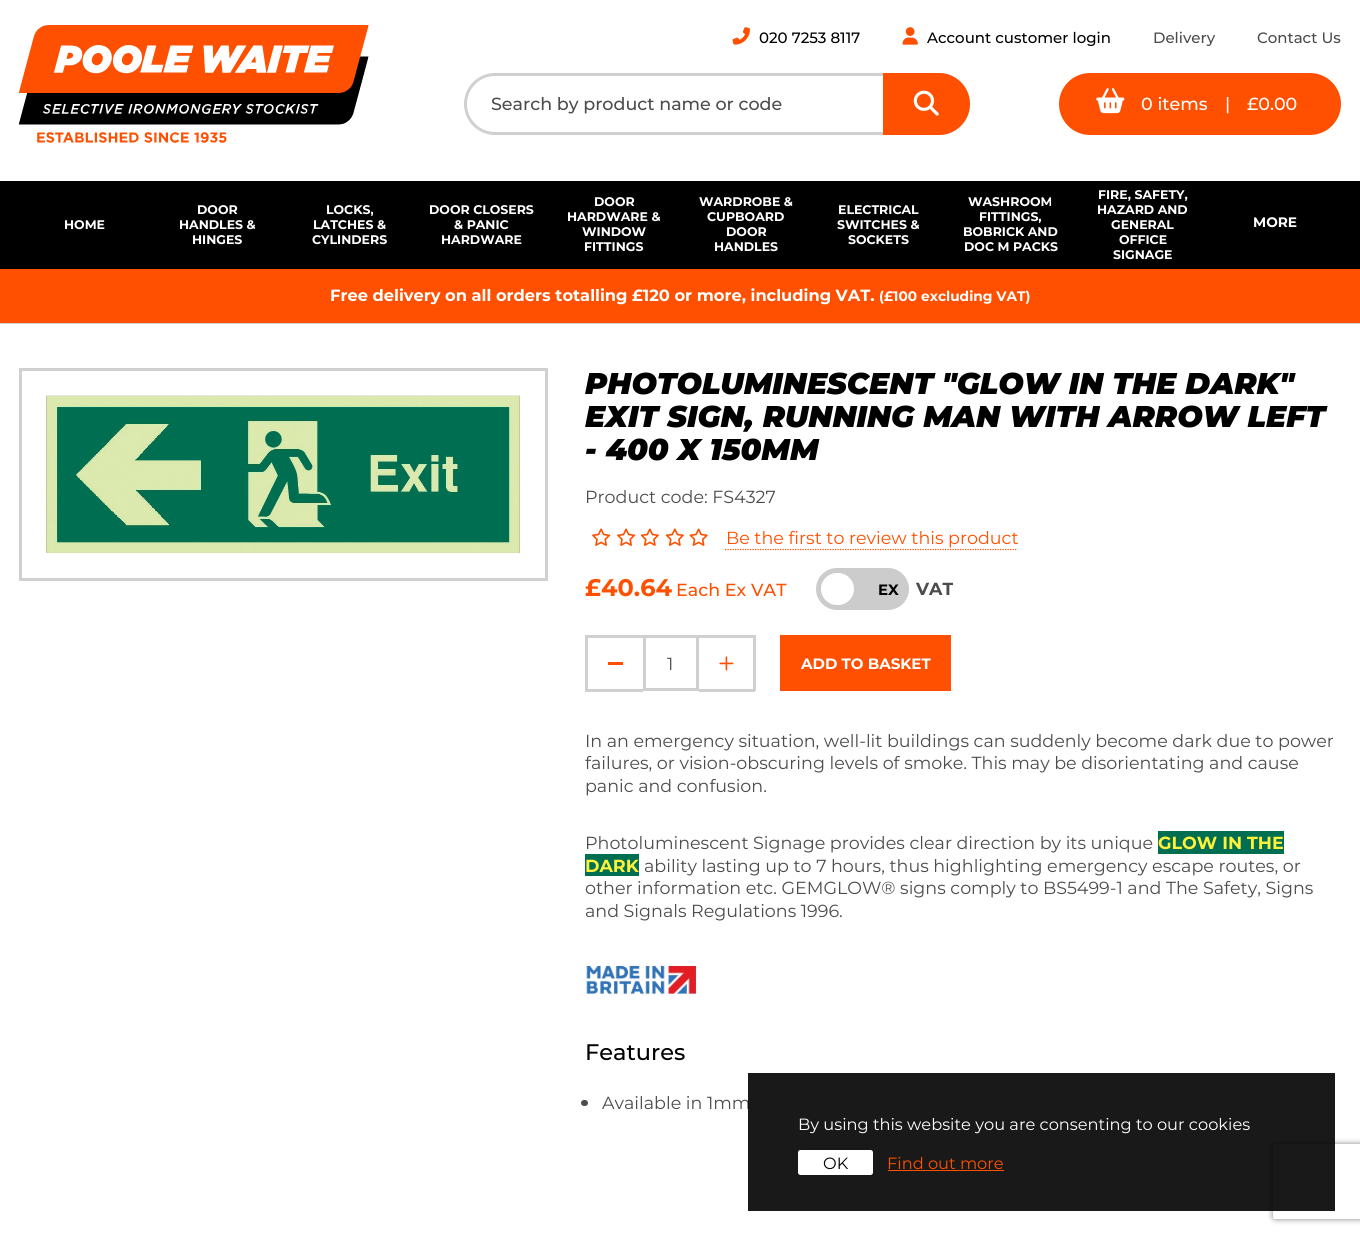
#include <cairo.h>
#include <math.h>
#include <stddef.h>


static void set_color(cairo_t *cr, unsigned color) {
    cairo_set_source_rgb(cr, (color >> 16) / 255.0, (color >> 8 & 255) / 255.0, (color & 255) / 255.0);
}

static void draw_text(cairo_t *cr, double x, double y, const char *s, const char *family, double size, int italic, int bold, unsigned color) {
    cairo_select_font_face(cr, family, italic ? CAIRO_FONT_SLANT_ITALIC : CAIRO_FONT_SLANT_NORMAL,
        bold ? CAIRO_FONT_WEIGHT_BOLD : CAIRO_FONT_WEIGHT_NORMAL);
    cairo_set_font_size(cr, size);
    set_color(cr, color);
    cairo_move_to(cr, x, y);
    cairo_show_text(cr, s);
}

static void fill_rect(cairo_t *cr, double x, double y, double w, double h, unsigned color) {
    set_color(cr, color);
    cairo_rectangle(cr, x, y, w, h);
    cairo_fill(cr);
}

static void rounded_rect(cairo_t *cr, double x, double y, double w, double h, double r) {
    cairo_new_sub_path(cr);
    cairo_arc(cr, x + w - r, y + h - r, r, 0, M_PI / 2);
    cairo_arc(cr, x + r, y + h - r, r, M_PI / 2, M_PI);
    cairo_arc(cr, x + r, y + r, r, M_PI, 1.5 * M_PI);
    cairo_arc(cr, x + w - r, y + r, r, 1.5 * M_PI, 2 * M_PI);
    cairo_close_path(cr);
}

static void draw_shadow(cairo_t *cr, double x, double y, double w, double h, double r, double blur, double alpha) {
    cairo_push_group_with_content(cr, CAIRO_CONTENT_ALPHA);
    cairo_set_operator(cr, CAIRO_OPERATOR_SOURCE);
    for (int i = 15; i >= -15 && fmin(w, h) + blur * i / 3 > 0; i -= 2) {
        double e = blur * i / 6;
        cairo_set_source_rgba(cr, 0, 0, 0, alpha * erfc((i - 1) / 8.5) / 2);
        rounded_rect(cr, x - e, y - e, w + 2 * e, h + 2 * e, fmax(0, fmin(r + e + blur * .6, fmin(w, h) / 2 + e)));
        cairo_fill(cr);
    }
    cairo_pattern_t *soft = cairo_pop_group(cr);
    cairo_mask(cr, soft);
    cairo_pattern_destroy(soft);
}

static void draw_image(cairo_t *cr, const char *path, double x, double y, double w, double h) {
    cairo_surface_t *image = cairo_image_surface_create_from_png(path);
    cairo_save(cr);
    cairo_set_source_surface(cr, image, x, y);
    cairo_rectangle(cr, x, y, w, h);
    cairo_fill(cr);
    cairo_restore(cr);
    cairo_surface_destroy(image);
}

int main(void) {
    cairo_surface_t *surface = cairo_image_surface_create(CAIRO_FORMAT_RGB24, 1360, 1236);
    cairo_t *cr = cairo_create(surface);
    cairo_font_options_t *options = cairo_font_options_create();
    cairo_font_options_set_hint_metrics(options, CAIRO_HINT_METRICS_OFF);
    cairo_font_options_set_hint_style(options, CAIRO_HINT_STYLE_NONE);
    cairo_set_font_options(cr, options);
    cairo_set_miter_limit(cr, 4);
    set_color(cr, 0xFFFFFF);
    cairo_paint(cr);
    draw_image(cr, "assets/img1.png", 19, 25, 350, 118);
    draw_image(cr, "assets/img2.png", 732, 27, 18, 18);
    draw_text(cr, 759, 43, "020 7253 8117", "Montserrat Medium", 15, 0, 0, 0x000000);
    draw_image(cr, "assets/img3.png", 902, 27, 16, 18);
    draw_text(cr, 927, 43, "Account customer login", "Montserrat Medium", 15, 0, 0, 0x000000);
    draw_text(cr, 1153, 43, "Delivery", "Montserrat Medium", 15, 0, 0, 0x4C4C4C);
    draw_text(cr, 1257, 43, "Contact Us", "Montserrat Medium", 15, 0, 0, 0x4C4C4C);
    rounded_rect(cr, 465.5, 74.5, 503, 59, 29.5);
    set_color(cr, 0xD0D0D0);
    cairo_set_line_width(cr, 3);
    cairo_stroke(cr);
    draw_text(cr, 491, 110, "Search by product name or code", "Montserrat Medium", 17.5, 0, 0, 0x4C4C4C);
    set_color(cr, 0xFE5000);
    cairo_new_path(cr);
    cairo_move_to(cr, 883, 73);
    cairo_line_to(cr, 939, 73);
    cairo_curve_to(cr, 956, 73, 970, 87, 970, 104);
    cairo_curve_to(cr, 970, 121, 956, 135, 939, 135);
    cairo_line_to(cr, 883, 135);
    cairo_close_path(cr);
    cairo_fill(cr);
    draw_image(cr, "assets/img4.png", 913, 90, 26, 26);
    rounded_rect(cr, 1059, 73, 282, 62, 31);
    cairo_fill(cr);
    draw_image(cr, "assets/img5.png", 1096, 88, 29, 26);
    draw_text(cr, 1141, 110, "0 items", "Montserrat Medium", 17.5, 0, 0, 0xFFFFFF);
    draw_text(cr, 1225, 110, "|", "Montserrat Medium", 17.5, 0, 0, 0xFFFFFF);
    draw_text(cr, 1247, 110, "£0.00", "Montserrat Medium", 17.5, 0, 0, 0xFFFFFF);
    fill_rect(cr, 0, 181, 1360, 88, 0x000000);
    draw_text(cr, 64, 229, "HOME", "Montserrat", 12.5, 0, 1, 0xFFFFFF);
    draw_text(cr, 197, 214, "DOOR", "Montserrat", 12.5, 0, 1, 0xFFFFFF);
    draw_text(cr, 179, 229, "HANDLES &", "Montserrat", 12.5, 0, 1, 0xFFFFFF);
    draw_text(cr, 192, 244, "HINGES", "Montserrat", 12.5, 0, 1, 0xFFFFFF);
    draw_text(cr, 326, 214, "LOCKS,", "Montserrat", 12.5, 0, 1, 0xFFFFFF);
    draw_text(cr, 313, 229, "LATCHES &", "Montserrat", 12.5, 0, 1, 0xFFFFFF);
    draw_text(cr, 312, 244, "CYLINDERS", "Montserrat", 12.5, 0, 1, 0xFFFFFF);
    draw_text(cr, 429, 214, "DOOR CLOSERS", "Montserrat", 12.5, 0, 1, 0xFFFFFF);
    draw_text(cr, 454, 229, "& PANIC", "Montserrat", 12.5, 0, 1, 0xFFFFFF);
    draw_text(cr, 441, 244, "HARDWARE", "Montserrat", 12.5, 0, 1, 0xFFFFFF);
    draw_text(cr, 594, 206, "DOOR", "Montserrat", 12.5, 0, 1, 0xFFFFFF);
    draw_text(cr, 567, 221, "HARDWARE &", "Montserrat", 12.5, 0, 1, 0xFFFFFF);
    draw_text(cr, 582, 236, "WINDOW", "Montserrat", 12.5, 0, 1, 0xFFFFFF);
    draw_text(cr, 584, 251, "FITTINGS", "Montserrat", 12.5, 0, 1, 0xFFFFFF);
    draw_text(cr, 699, 206, "WARDROBE &", "Montserrat", 12.5, 0, 1, 0xFFFFFF);
    draw_text(cr, 707, 221, "CUPBOARD", "Montserrat", 12.5, 0, 1, 0xFFFFFF);
    draw_text(cr, 726, 236, "DOOR", "Montserrat", 12.5, 0, 1, 0xFFFFFF);
    draw_text(cr, 714, 251, "HANDLES", "Montserrat", 12.5, 0, 1, 0xFFFFFF);
    draw_text(cr, 838, 214, "ELECTRICAL", "Montserrat", 12.5, 0, 1, 0xFFFFFF);
    draw_text(cr, 837, 229, "SWITCHES &", "Montserrat", 12.5, 0, 1, 0xFFFFFF);
    draw_text(cr, 848, 244, "SOCKETS", "Montserrat", 12.5, 0, 1, 0xFFFFFF);
    draw_text(cr, 968, 206, "WASHROOM", "Montserrat", 12.5, 0, 1, 0xFFFFFF);
    draw_text(cr, 979, 221, "FITTINGS,", "Montserrat", 12.5, 0, 1, 0xFFFFFF);
    draw_text(cr, 963, 236, "BOBRICK AND", "Montserrat", 12.5, 0, 1, 0xFFFFFF);
    draw_text(cr, 964, 251, "DOC M PACKS", "Montserrat", 12.5, 0, 1, 0xFFFFFF);
    draw_text(cr, 1098, 199, "FIRE, SAFETY,", "Montserrat", 12.5, 0, 1, 0xFFFFFF);
    draw_text(cr, 1097, 214, "HAZARD AND", "Montserrat", 12.5, 0, 1, 0xFFFFFF);
    draw_text(cr, 1111, 229, "GENERAL", "Montserrat", 12.5, 0, 1, 0xFFFFFF);
    draw_text(cr, 1119, 244, "OFFICE", "Montserrat", 12.5, 0, 1, 0xFFFFFF);
    draw_text(cr, 1113, 259, "SIGNAGE", "Montserrat", 12.5, 0, 1, 0xFFFFFF);
    draw_text(cr, 1253, 227, "MORE", "Montserrat", 13.75, 0, 1, 0xFFFFFF);
    fill_rect(cr, 0, 269, 1360, 54, 0xFE5000);
    fill_rect(cr, 0, 323, 1360, 1, 0xD0D0D0);
    draw_text(cr, 330, 301, "Free delivery on all orders totalling £120 or more, including VAT.", "Montserrat", 16.25, 0, 1, 0xFFFFFF);
    draw_text(cr, 879, 301, "(£100 excluding VAT)", "Montserrat", 13.75, 0, 1, 0xFFFFFF);
    cairo_rectangle(cr, 20.5, 369.5, 526, 210);
    set_color(cr, 0xD0D0D0);
    cairo_stroke(cr);
    draw_image(cr, "assets/img6.png", 46, 395, 474, 159);
    draw_text(cr, 585, 394, "PHOTOLUMINESCENT \"GLOW IN THE DARK\"", "Montserrat Black", 30, 1, 0, 0x000000);
    draw_text(cr, 585, 427, "EXIT SIGN, RUNNING MAN WITH ARROW LEFT", "Montserrat Black", 30, 1, 0, 0x000000);
    draw_text(cr, 585, 460, "- 400 X 150MM", "Montserrat Black", 30, 1, 0, 0x000000);
    draw_text(cr, 585, 503, "Product code: FS4327", "Montserrat", 17.5, 0, 0, 0x4C4C4C);
    draw_image(cr, "assets/img7.png", 592, 528, 19, 18);
    draw_image(cr, "assets/img7.png", 617, 528, 19, 18);
    draw_image(cr, "assets/img8.png", 640, 528, 19, 18);
    draw_image(cr, "assets/img8.png", 665, 528, 19, 18);
    draw_image(cr, "assets/img9.png", 689, 528, 19, 18);
    draw_text(cr, 726, 544, "Be the first to review this product", "Montserrat", 17.5, 0, 0, 0xFE5000);
    cairo_new_path(cr);
    cairo_move_to(cr, 725, 549.5);
    cairo_line_to(cr, 1017.5, 549.5);
    cairo_set_line_width(cr, 1.2);
    cairo_set_dash(cr, (double[]){1.25, 1.25}, 2, 0);
    cairo_stroke(cr);
    draw_text(cr, 585, 596, "£40.64", "Montserrat", 24, 0, 1, 0xFE5000);
    draw_text(cr, 676, 596, "Each Ex VAT", "Montserrat Medium", 17.5, 0, 0, 0xFE5000);
    set_color(cr, 0xCCCCCC);
    rounded_rect(cr, 816, 568, 93, 42, 21);
    cairo_fill(cr);
    set_color(cr, 0xFFFFFF);
    rounded_rect(cr, 821, 573, 33, 32, 16);
    cairo_fill(cr);
    draw_text(cr, 878, 595, "EX", "Montserrat", 15, 0, 1, 0x000000);
    draw_text(cr, 916, 595, "VAT", "Montserrat", 17.5, 0, 1, 0x4C4C4C);
    fill_rect(cr, 585, 635, 58, 3, 0xD0D0D0);
    fill_rect(cr, 585, 689, 58, 3, 0xD0D0D0);
    fill_rect(cr, 585, 635, 3, 56, 0xD0D0D0);
    fill_rect(cr, 608, 662, 15, 3, 0xFE5000);
    cairo_rectangle(cr, 644.5, 636.5, 53, 53);
    set_color(cr, 0xD0D0D0);
    cairo_set_line_width(cr, 3);
    cairo_set_dash(cr, NULL, 0, 0);
    cairo_stroke(cr);
    draw_text(cr, 667, 670, "1", "Montserrat", 17.5, 0, 0, 0x4C4C4C);
    fill_rect(cr, 699, 635, 56, 3, 0xD0D0D0);
    fill_rect(cr, 753, 635, 3, 56, 0xD0D0D0);
    fill_rect(cr, 699, 689, 56, 3, 0xD0D0D0);
    draw_image(cr, "assets/img10.png", 719, 656, 15, 15);
    fill_rect(cr, 780, 635, 171, 56, 0xFE5000);
    draw_text(cr, 801, 669, "ADD TO BASKET", "Montserrat", 15, 0, 1, 0xFFFFFF);
    draw_text(cr, 585, 747, "In an emergency situation, well-lit buildings can suddenly become dark due to power", "Montserrat", 17.5, 0, 0, 0x4C4C4C);
    draw_text(cr, 585, 769, "failures, or vision-obscuring levels of smoke. This may be disorientating and cause", "Montserrat", 17.5, 0, 0, 0x4C4C4C);
    draw_text(cr, 585, 792, "panic and confusion.", "Montserrat", 17.5, 0, 0, 0x4C4C4C);
    draw_text(cr, 585, 849, "Photoluminescent Signage provides clear direction by its unique", "Montserrat", 17.5, 0, 0, 0x4C4C4C);
    fill_rect(cr, 1158, 831, 126, 23, 0x006F51);
    draw_text(cr, 1158, 849, "GLOW IN THE", "Montserrat", 17.5, 0, 1, 0xFFF039);
    fill_rect(cr, 585, 854, 54, 22, 0x006F51);
    draw_text(cr, 585, 872, "DARK", "Montserrat", 17.5, 0, 1, 0xFFF039);
    draw_text(cr, 644, 872, "ability lasting up to 7 hours, thus highlighting emergency escape routes, or", "Montserrat", 17.5, 0, 0, 0x4C4C4C);
    draw_text(cr, 585, 894, "other information etc. GEMGLOW® signs comply to BS5499-1 and The Safety, Signs", "Montserrat", 17.5, 0, 0, 0x4C4C4C);
    draw_text(cr, 585, 917, "and Signals Regulations 1996.", "Montserrat", 17.5, 0, 0, 0x4C4C4C);
    draw_image(cr, "assets/img11.png", 585, 963, 112, 33);
    draw_text(cr, 585, 1060, "Features", "Montserrat Medium", 22.5, 0, 0, 0x000000);
    set_color(cr, 0x4C4C4C);
    rounded_rect(cr, 581, 1100, 7, 6, 3);
    cairo_fill(cr);
    draw_text(cr, 602, 1109, "Available in 1mm", "Montserrat", 17.5, 0, 0, 0x4C4C4C);
    cairo_save(cr);
    cairo_set_fill_rule(cr, CAIRO_FILL_RULE_EVEN_ODD);
    cairo_new_path(cr);
    cairo_move_to(cr, 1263, 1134);
    cairo_line_to(cr, 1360, 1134);
    cairo_line_to(cr, 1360, 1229);
    cairo_line_to(cr, 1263, 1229);
    cairo_close_path(cr);
    cairo_move_to(cr, 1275.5, 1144);
    cairo_line_to(cr, 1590.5, 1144);
    cairo_curve_to(cr, 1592, 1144, 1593, 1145, 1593, 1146.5);
    cairo_line_to(cr, 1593, 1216.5);
    cairo_curve_to(cr, 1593, 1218, 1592, 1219, 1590.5, 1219);
    cairo_line_to(cr, 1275.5, 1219);
    cairo_curve_to(cr, 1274, 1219, 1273, 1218, 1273, 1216.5);
    cairo_line_to(cr, 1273, 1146.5);
    cairo_curve_to(cr, 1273, 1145, 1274, 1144, 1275.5, 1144);
    cairo_close_path(cr);
    cairo_clip(cr);
    set_color(cr, 0x808080);
    draw_shadow(cr, 1273, 1144, 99, 75, 2.5, 3, 1);
    cairo_restore(cr);
    cairo_set_source_rgba(cr, 0, 0, 0, 0.9);
    cairo_rectangle(cr, 748, 1073, 587, 138);
    cairo_fill(cr);
    draw_text(cr, 798, 1130, "By using this website you are consenting to our cookies", "Montserrat", 16.25, 0, 0, 0xFFFFFF);
    rounded_rect(cr, 798, 1150, 75, 25, 2.5);
    cairo_fill(cr);
    draw_text(cr, 823, 1169, "OK", "Montserrat", 16.25, 0, 0, 0x000000);
    draw_text(cr, 887, 1169, "Find out more", "Montserrat", 16.25, 0, 0, 0xFE5000);
    fill_rect(cr, 888, 1170, 116, 1, 0xFE5000);
    cairo_surface_write_to_png(surface, "output.png");
    cairo_font_options_destroy(options);
    cairo_destroy(cr);
    cairo_surface_destroy(surface);
    return 0;
}
